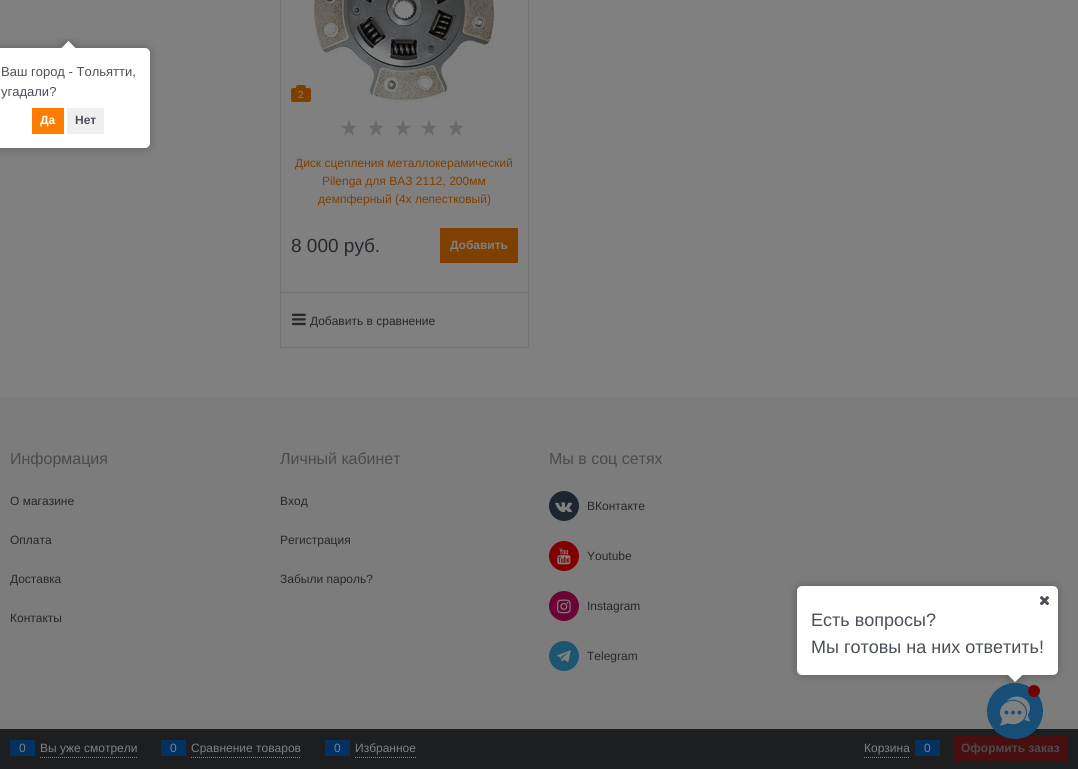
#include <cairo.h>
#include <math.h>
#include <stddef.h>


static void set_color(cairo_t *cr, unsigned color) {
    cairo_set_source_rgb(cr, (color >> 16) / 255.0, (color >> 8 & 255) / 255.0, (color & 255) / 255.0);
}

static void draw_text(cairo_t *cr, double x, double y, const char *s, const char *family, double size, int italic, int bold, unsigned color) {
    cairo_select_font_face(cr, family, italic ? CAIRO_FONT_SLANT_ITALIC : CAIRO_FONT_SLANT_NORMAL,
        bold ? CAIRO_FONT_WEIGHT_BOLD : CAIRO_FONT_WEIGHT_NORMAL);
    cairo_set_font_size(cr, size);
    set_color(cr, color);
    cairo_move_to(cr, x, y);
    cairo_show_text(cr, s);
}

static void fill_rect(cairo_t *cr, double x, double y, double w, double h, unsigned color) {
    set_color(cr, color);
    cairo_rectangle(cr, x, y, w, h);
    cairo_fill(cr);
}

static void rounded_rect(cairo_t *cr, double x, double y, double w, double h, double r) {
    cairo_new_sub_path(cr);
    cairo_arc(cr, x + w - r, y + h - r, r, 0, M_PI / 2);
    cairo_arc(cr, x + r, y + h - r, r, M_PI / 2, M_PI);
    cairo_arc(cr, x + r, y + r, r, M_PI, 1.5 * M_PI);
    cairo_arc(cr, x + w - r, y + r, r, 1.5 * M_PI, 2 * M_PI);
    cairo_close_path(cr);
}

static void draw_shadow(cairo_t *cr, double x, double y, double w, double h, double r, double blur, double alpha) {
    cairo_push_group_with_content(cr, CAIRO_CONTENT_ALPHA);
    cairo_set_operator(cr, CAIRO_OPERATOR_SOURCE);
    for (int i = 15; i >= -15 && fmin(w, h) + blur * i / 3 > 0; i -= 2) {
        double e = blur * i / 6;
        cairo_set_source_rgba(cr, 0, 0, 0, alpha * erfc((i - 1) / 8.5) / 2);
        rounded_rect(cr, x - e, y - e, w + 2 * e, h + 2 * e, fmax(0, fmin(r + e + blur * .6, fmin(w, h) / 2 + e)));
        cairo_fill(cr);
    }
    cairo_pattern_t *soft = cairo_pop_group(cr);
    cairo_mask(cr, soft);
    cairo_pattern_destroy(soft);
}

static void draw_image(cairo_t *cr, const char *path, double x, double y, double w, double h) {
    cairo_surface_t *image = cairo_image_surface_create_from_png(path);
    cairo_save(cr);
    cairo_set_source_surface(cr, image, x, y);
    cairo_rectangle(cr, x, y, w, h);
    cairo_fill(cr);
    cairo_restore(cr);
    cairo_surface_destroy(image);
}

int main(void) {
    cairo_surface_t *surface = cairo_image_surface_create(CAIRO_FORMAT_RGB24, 1078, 769);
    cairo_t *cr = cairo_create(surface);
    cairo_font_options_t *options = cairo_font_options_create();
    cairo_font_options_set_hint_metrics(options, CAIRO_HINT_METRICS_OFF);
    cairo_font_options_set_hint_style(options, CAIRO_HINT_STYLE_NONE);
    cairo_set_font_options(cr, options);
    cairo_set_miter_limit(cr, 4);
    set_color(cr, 0x808080);
    cairo_paint(cr);
    set_color(cr, 0x000000);
    draw_shadow(cr, -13, 48, 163, 100, 5, 4.5, 0.25);
    set_color(cr, 0xFFFFFF);
    rounded_rect(cr, -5, 48, 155, 100, 5);
    cairo_fill(cr);
    cairo_save(cr);
    cairo_rectangle(cr, 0, 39, 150, 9);
    cairo_clip(cr);
    set_color(cr, 0x000000);
    draw_shadow(cr, 63, 43, 10, 10, 0, 4.5, 0.25);
    cairo_restore(cr);
    cairo_save(cr);
    cairo_rectangle(cr, 0, 39, 150, 9);
    cairo_clip(cr);
    cairo_new_path(cr);
    cairo_move_to(cr, 68.5, 41);
    cairo_line_to(cr, 75.5, 48);
    cairo_line_to(cr, 68.5, 55);
    cairo_line_to(cr, 61.5, 48);
    cairo_close_path(cr);
    cairo_fill(cr);
    cairo_restore(cr);
    draw_text(cr, 1, 76, "Ваш город - Тольятти,", "Liberation Sans", 13, 0, 0, 0x4B4F58);
    draw_text(cr, 1, 96, "угадали?", "Liberation Sans", 13, 0, 0, 0x4B4F58);
    fill_rect(cr, 32, 108, 32, 26, 0xFE7D00);
    draw_text(cr, 40, 124, "Да", "Liberation Sans", 12, 0, 1, 0xFFFFFF);
    fill_rect(cr, 67, 108, 37, 26, 0xEFEFEF);
    draw_text(cr, 75, 124, "Нет", "Liberation Sans", 12, 0, 1, 0x4B4F58);
    cairo_rectangle(cr, 280.5, -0.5, 248, 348);
    set_color(cr, 0x717272);
    cairo_set_line_width(cr, 1);
    cairo_stroke(cr);
    set_color(cr, 0x7F3F00);
    rounded_rect(cr, 291, 88, 20, 14, 2);
    cairo_fill(cr);
    cairo_new_path(cr);
    cairo_move_to(cr, 298, 85);
    cairo_line_to(cr, 304, 85);
    cairo_curve_to(cr, 305, 85, 306, 86, 306, 87);
    cairo_line_to(cr, 306, 88);
    cairo_line_to(cr, 296, 88);
    cairo_line_to(cr, 296, 87);
    cairo_curve_to(cr, 296, 86, 297, 85, 298, 85);
    cairo_close_path(cr);
    cairo_fill(cr);
    draw_text(cr, 298, 98, "2", "Liberation Sans", 10, 0, 0, 0x808080);
    draw_image(cr, "assets/img1.png", 314, 0, 180, 102);
    draw_image(cr, "assets/img2.png", 341, 120, 16, 16);
    draw_image(cr, "assets/img2.png", 368, 120, 16, 16);
    draw_image(cr, "assets/img2.png", 395, 120, 16, 16);
    draw_image(cr, "assets/img2.png", 421, 120, 16, 16);
    draw_image(cr, "assets/img2.png", 448, 120, 16, 16);
    draw_text(cr, 295, 167, "Диск сцепления металлокерамический", "Liberation Sans", 12, 0, 0, 0x7F3F00);
    draw_text(cr, 322, 185, "Pilenga для ВАЗ 2112, 200мм", "Liberation Sans", 12, 0, 0, 0x7F3F00);
    draw_text(cr, 318, 203, "демпферный (4х лепестковый)", "Liberation Sans", 12, 0, 0, 0x7F3F00);
    draw_text(cr, 291, 252, "8 000 руб.", "Liberation Sans", 19, 0, 0, 0x26282C);
    fill_rect(cr, 440, 228, 78, 35, 0x7F3F00);
    draw_text(cr, 450, 249, "Добавить", "Liberation Sans", 12, 0, 1, 0x808080);
    fill_rect(cr, 281, 292, 247, 1, 0x717272);
    draw_image(cr, "assets/img3.png", 292, 313, 14, 13);
    draw_text(cr, 310, 325, "Добавить в сравнение", "Liberation Sans", 12, 0, 0, 0x26282C);
    fill_rect(cr, 0, 397, 1078, 324, 0x7C7C7C);
    draw_text(cr, 10, 464, "Информация", "Liberation Sans", 16, 0, 0, 0x4A4B4E);
    draw_text(cr, 10, 505, "О магазине", "Liberation Sans", 12, 0, 0, 0x26282C);
    draw_text(cr, 10, 544, "Оплата", "Liberation Sans", 12, 0, 0, 0x26282C);
    draw_text(cr, 10, 583, "Доставка", "Liberation Sans", 12, 0, 0, 0x26282C);
    draw_text(cr, 10, 622, "Контакты", "Liberation Sans", 12, 0, 0, 0x26282C);
    draw_text(cr, 280, 464, "Личный кабинет", "Liberation Sans", 16, 0, 0, 0x4A4B4E);
    draw_text(cr, 280, 505, "Вход", "Liberation Sans", 12, 0, 0, 0x26282C);
    draw_text(cr, 280, 544, "Регистрация", "Liberation Sans", 12, 0, 0, 0x26282C);
    draw_text(cr, 280, 583, "Забыли пароль?", "Liberation Sans", 12, 0, 0, 0x26282C);
    draw_text(cr, 549, 464, "Мы в соц сетях", "Liberation Sans", 16, 0, 0, 0x4A4B4E);
    set_color(cr, 0x1E2530);
    cairo_new_path(cr);
    cairo_arc(cr, 564, 506, 15, 0, 2 * M_PI);
    cairo_fill(cr);
    draw_image(cr, "assets/img4.png", 555, 502, 18, 11);
    draw_text(cr, 587, 510, "ВКонтакте", "Liberation Sans", 12, 0, 0, 0x26282C);
    set_color(cr, 0x800000);
    cairo_new_path(cr);
    cairo_arc(cr, 564, 556, 15, 0, 2 * M_PI);
    cairo_fill(cr);
    draw_image(cr, "assets/img5.png", 557, 548, 14, 17);
    draw_text(cr, 587, 560, "Youtube", "Liberation Sans", 12, 0, 0, 0x26282C);
    set_color(cr, 0x690435);
    cairo_new_path(cr);
    cairo_arc(cr, 564, 606, 15, 0, 2 * M_PI);
    cairo_fill(cr);
    draw_image(cr, "assets/img6.png", 557, 599, 14, 15);
    draw_text(cr, 587, 610, "Instagram", "Liberation Sans", 12, 0, 0, 0x26282C);
    set_color(cr, 0x1B5671);
    cairo_new_path(cr);
    cairo_arc(cr, 564, 656, 15, 0, 2 * M_PI);
    cairo_fill(cr);
    draw_image(cr, "assets/img7.png", 557, 650, 14, 13);
    draw_text(cr, 587, 660, "Telegram", "Liberation Sans", 12, 0, 0, 0x26282C);
    fill_rect(cr, 0, 721, 1078, 8, 0x7A7A7A);
    fill_rect(cr, 0, 729, 1078, 40, 0x1C1E20);
    cairo_new_path(cr);
    cairo_move_to(cr, 40, 757.5);
    cairo_line_to(cr, 137, 757.5);
    set_color(cr, 0x808080);
    cairo_set_dash(cr, (double[]){1, 1}, 2, 0);
    cairo_stroke(cr);
    fill_rect(cr, 10, 740, 25, 16, 0x033161);
    draw_text(cr, 19, 752, "0", "Liberation Sans", 12, 0, 0, 0x808080);
    draw_text(cr, 40, 752, "Вы уже смотрели", "Liberation Sans", 12, 0, 0, 0x808080);
    cairo_new_path(cr);
    cairo_move_to(cr, 191, 757.5);
    cairo_line_to(cr, 301, 757.5);
    cairo_stroke(cr);
    fill_rect(cr, 161, 740, 25, 16, 0x033161);
    draw_text(cr, 170, 752, "0", "Liberation Sans", 12, 0, 0, 0x808080);
    draw_text(cr, 191, 752, "Сравнение товаров", "Liberation Sans", 12, 0, 0, 0x808080);
    cairo_new_path(cr);
    cairo_move_to(cr, 355, 757.5);
    cairo_line_to(cr, 416, 757.5);
    cairo_stroke(cr);
    fill_rect(cr, 325, 740, 25, 16, 0x033161);
    draw_text(cr, 334, 752, "0", "Liberation Sans", 12, 0, 0, 0x808080);
    draw_text(cr, 355, 752, "Избранное", "Liberation Sans", 12, 0, 0, 0x808080);
    cairo_new_path(cr);
    cairo_move_to(cr, 864, 757.5);
    cairo_line_to(cr, 910, 757.5);
    cairo_stroke(cr);
    draw_text(cr, 864, 752, "Корзина", "Liberation Sans", 12, 0, 0, 0x808080);
    fill_rect(cr, 915, 740, 25, 16, 0x033161);
    draw_text(cr, 924, 752, "0", "Liberation Sans", 12, 0, 0, 0x808080);
    fill_rect(cr, 953, 736, 115, 25, 0x470F10);
    draw_text(cr, 961, 752, "Оформить заказ", "Liberation Sans", 12, 0, 1, 0x4A4B4E);
    set_color(cr, 0x174E77);
    cairo_new_path(cr);
    cairo_arc(cr, 1015, 711, 28, 0, 2 * M_PI);
    cairo_fill(cr);
    draw_image(cr, "assets/img9.png", 1000, 696, 30, 30);
    set_color(cr, 0x720001);
    cairo_arc(cr, 1034, 691, 6, 0, 2 * M_PI);
    cairo_fill(cr);
    set_color(cr, 0x000000);
    draw_shadow(cr, 797, 586, 261, 89, 5, 4.5, 0.25);
    set_color(cr, 0xFFFFFF);
    rounded_rect(cr, 797, 586, 261, 89, 5);
    cairo_fill(cr);
    draw_image(cr, "assets/img8.png", 1039, 596, 11, 10);
    draw_text(cr, 811, 626, "Есть вопросы?", "Liberation Sans", 18, 0, 0, 0x4B4F58);
    draw_text(cr, 811, 653, "Мы готовы на них ответить!", "Liberation Sans", 18, 0, 0, 0x4B4F58);
    cairo_save(cr);
    cairo_rectangle(cr, 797, 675, 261, 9);
    cairo_clip(cr);
    set_color(cr, 0x000000);
    draw_shadow(cr, 1010, 670, 10, 10, 0, 4.5, 0.25);
    cairo_restore(cr);
    cairo_save(cr);
    cairo_rectangle(cr, 797, 675, 261, 9);
    cairo_clip(cr);
    set_color(cr, 0xFFFFFF);
    cairo_new_path(cr);
    cairo_move_to(cr, 1015, 667.5);
    cairo_line_to(cr, 1022.5, 675);
    cairo_line_to(cr, 1015, 682);
    cairo_line_to(cr, 1008, 675);
    cairo_close_path(cr);
    cairo_fill(cr);
    cairo_restore(cr);
    cairo_surface_write_to_png(surface, "output.png");
    cairo_font_options_destroy(options);
    cairo_destroy(cr);
    cairo_surface_destroy(surface);
    return 0;
}
